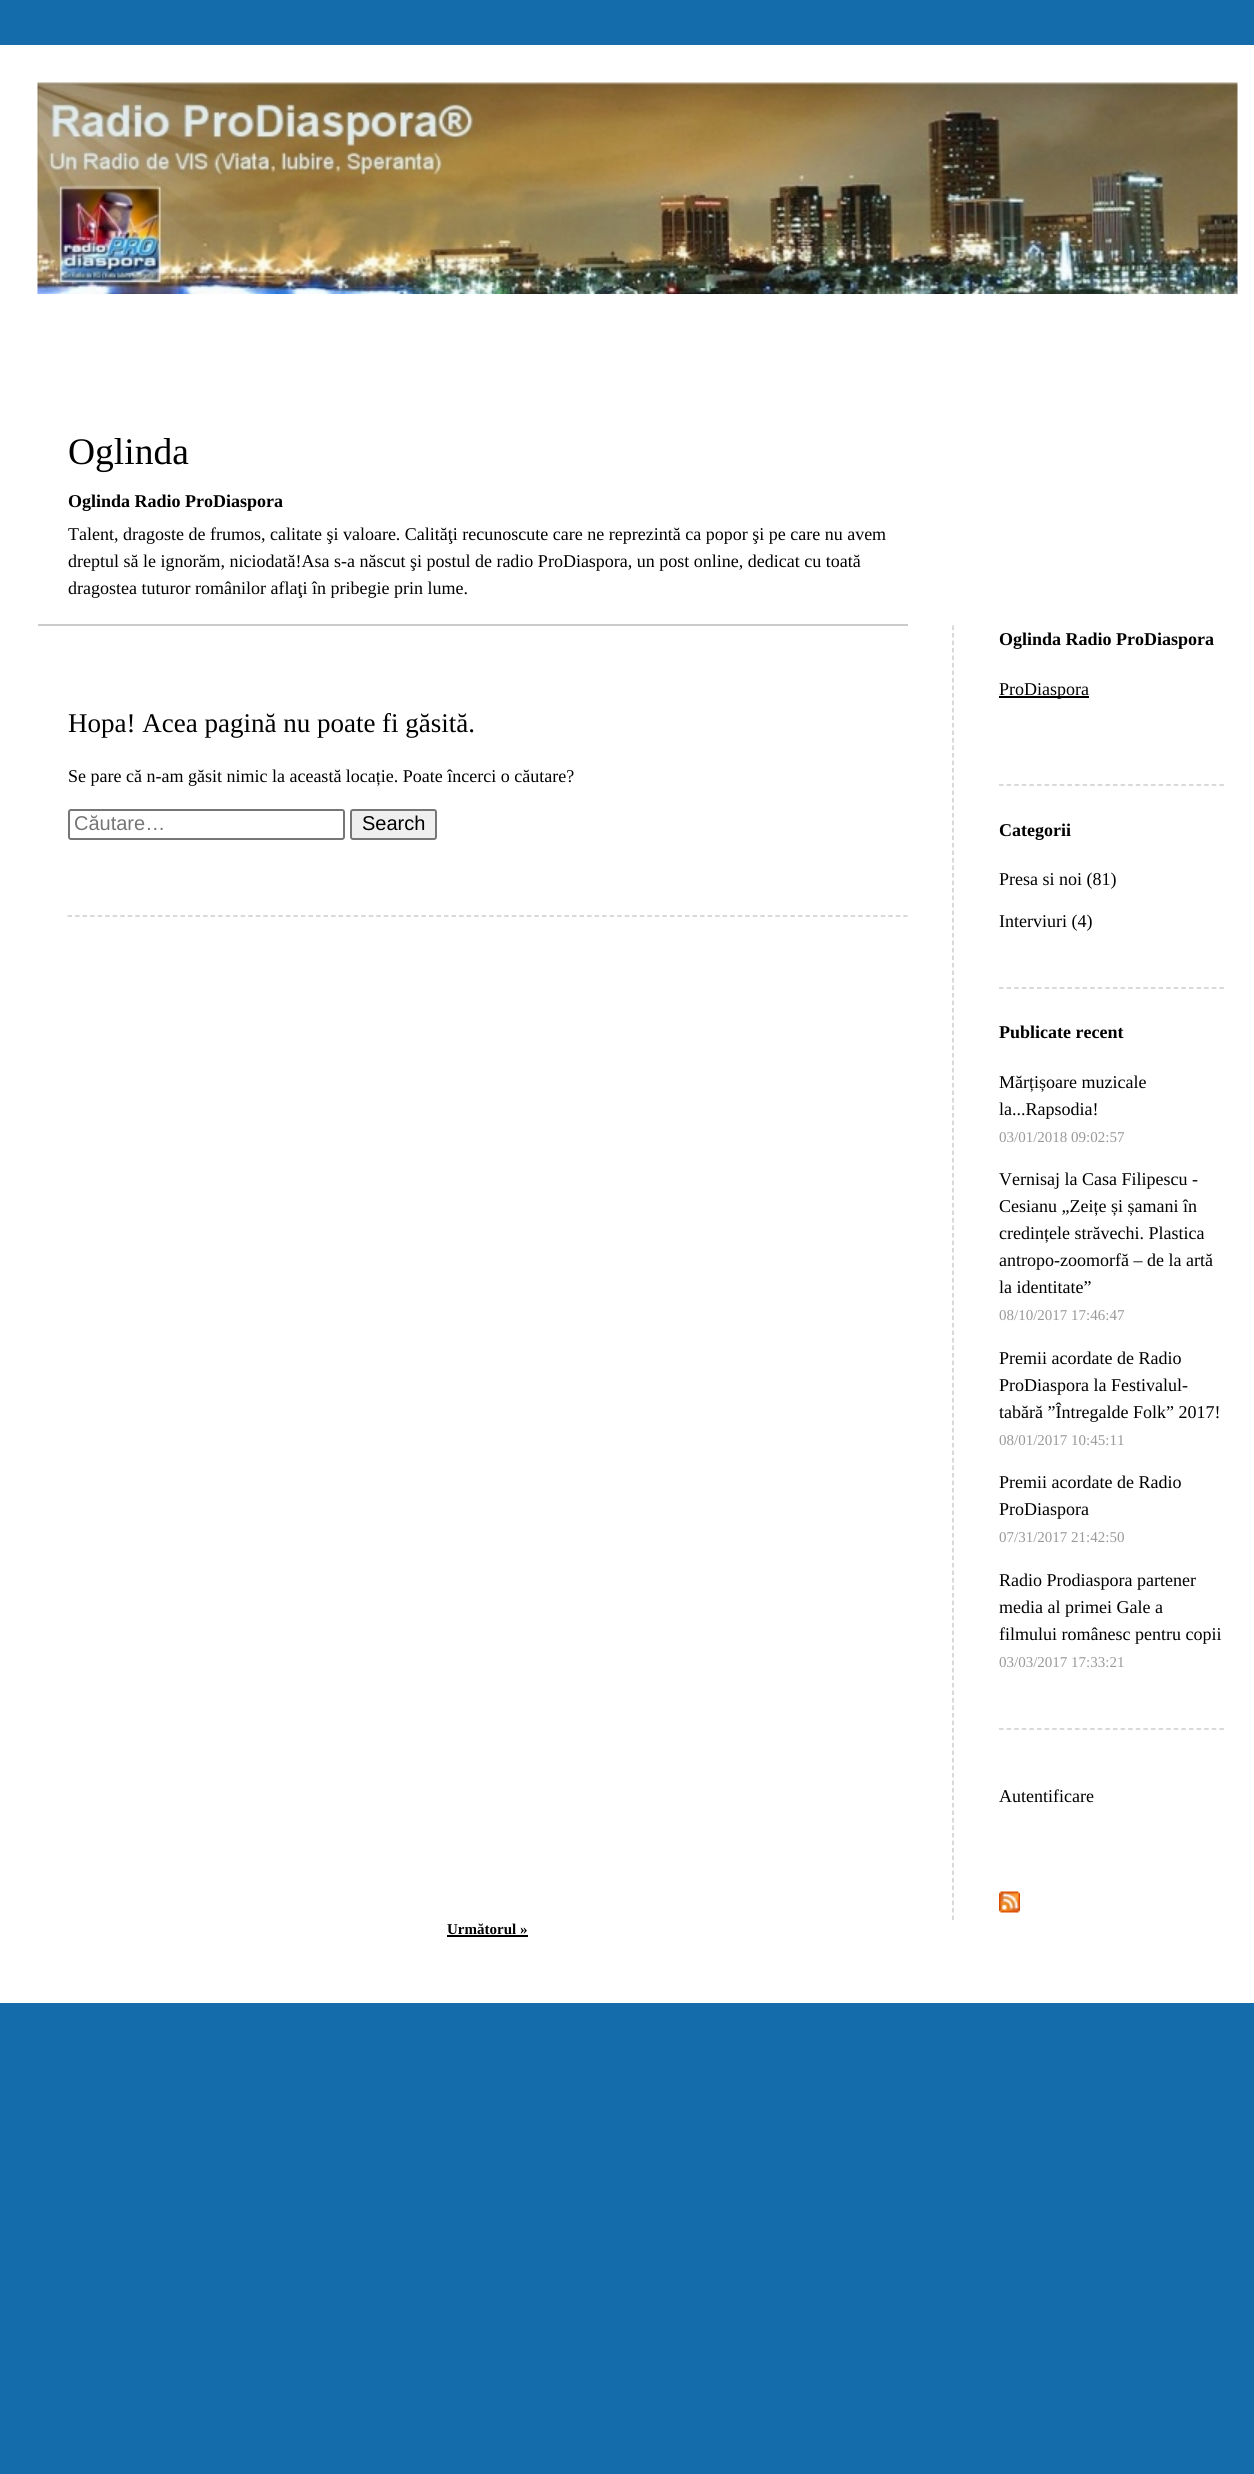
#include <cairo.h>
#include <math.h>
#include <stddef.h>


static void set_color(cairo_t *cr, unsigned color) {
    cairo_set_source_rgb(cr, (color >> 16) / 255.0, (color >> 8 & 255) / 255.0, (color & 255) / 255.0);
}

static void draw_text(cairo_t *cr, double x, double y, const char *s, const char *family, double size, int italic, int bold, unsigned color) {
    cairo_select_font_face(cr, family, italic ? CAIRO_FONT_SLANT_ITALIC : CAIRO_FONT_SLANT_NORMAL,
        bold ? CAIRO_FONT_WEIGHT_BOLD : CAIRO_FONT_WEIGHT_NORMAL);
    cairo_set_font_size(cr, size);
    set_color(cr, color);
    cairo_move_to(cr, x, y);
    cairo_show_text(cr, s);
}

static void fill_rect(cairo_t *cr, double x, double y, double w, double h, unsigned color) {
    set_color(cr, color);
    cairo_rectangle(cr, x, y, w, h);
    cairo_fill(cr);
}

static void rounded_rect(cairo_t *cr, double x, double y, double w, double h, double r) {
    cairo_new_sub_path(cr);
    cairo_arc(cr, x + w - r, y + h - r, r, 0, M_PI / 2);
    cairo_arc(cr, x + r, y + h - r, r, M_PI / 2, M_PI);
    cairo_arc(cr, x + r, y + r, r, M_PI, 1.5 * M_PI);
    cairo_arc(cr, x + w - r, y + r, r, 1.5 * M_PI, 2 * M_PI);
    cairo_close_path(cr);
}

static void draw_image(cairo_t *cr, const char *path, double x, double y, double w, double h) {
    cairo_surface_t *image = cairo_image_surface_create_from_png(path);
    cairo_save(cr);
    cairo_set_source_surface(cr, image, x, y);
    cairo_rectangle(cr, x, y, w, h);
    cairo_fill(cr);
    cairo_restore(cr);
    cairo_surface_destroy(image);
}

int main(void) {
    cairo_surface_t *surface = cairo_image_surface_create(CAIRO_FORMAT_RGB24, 1254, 2474);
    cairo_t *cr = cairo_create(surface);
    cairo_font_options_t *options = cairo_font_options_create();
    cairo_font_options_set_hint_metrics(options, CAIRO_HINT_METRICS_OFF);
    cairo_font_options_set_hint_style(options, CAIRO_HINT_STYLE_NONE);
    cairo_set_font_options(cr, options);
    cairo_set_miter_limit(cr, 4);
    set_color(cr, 0x156CAA);
    cairo_paint(cr);
    fill_rect(cr, 0, 45, 1254, 1958, 0xFFFFFF);
    draw_image(cr, "assets/img1.png", 37, 82, 1201, 212);
    fill_rect(cr, 38, 624, 870, 2, 0xCCCCCC);
    draw_text(cr, 68, 464, "Oglinda", "Liberation Serif", 37.5, 0, 0, 0x000000);
    draw_text(cr, 68, 507, "Oglinda Radio ProDiaspora", "Liberation Serif", 18, 0, 1, 0x000000);
    cairo_save(cr);
    cairo_rectangle(cr, 68, 521, 840, 81);
    cairo_clip(cr);
    draw_text(cr, 68, 540, "Talent, dragoste de frumos, calitate şi valoare. Calităţi recunoscute care ne reprezintă ca popor şi pe care nu avem", "Liberation Serif", 18, 0, 0, 0x000000);
    cairo_restore(cr);
    draw_text(cr, 68, 567, "dreptul să le ignorăm, niciodată!Asa s-a născut şi postul de radio ProDiaspora, un post online, dedicat cu toată", "Liberation Serif", 18, 0, 0, 0x000000);
    draw_text(cr, 68, 594, "dragostea tuturor românilor aflaţi în pribegie prin lume.", "Liberation Serif", 18, 0, 0, 0x000000);
    cairo_new_path(cr);
    cairo_move_to(cr, 67.5, 916);
    cairo_line_to(cr, 907.5, 916);
    set_color(cr, 0xCCCCCC);
    cairo_set_line_width(cr, 1.5);
    cairo_set_dash(cr, (double[]){4.5, 3.03}, 2, 0);
    cairo_stroke(cr);
    draw_text(cr, 68, 732, "Hopa! Acea pagină nu poate fi găsită.", "Liberation Serif", 27, 0, 0, 0x000000);
    draw_text(cr, 68, 782, "Se pare că n-am găsit nimic la această locație. Poate încerci o căutare?", "Liberation Serif", 18, 0, 0, 0x000000);
    rounded_rect(cr, 69, 810, 275, 29, 2);
    set_color(cr, 0x767676);
    cairo_set_line_width(cr, 2);
    cairo_set_dash(cr, NULL, 0, 0);
    cairo_stroke(cr);
    draw_text(cr, 74, 830, "Căutare…", "Liberation Sans", 20, 0, 0, 0x757575);
    set_color(cr, 0xEFEFEF);
    rounded_rect(cr, 351, 810, 85, 29, 2);
    cairo_fill_preserve(cr);
    set_color(cr, 0x767676);
    cairo_stroke(cr);
    draw_text(cr, 362, 830, "Search", "Liberation Sans", 20, 0, 0, 0x000000);
    cairo_new_path(cr);
    cairo_move_to(cr, 953, 625.5);
    cairo_line_to(cr, 953, 1920);
    set_color(cr, 0xCCCCCC);
    cairo_set_line_width(cr, 1.5);
    cairo_set_dash(cr, (double[]){4.5, 3}, 2, 0);
    cairo_stroke(cr);
    cairo_new_path(cr);
    cairo_move_to(cr, 999, 785);
    cairo_line_to(cr, 1224, 785);
    cairo_set_dash(cr, (double[]){4.5, 3.1}, 2, 0);
    cairo_stroke(cr);
    draw_text(cr, 999, 645, "Oglinda Radio ProDiaspora", "Liberation Serif", 18, 0, 1, 0x000000);
    fill_rect(cr, 999, 696, 90, 2, 0x000000);
    draw_text(cr, 999, 695, "ProDiaspora", "Liberation Serif", 18, 0, 0, 0x000000);
    cairo_new_path(cr);
    cairo_move_to(cr, 999, 988);
    cairo_line_to(cr, 1224, 988);
    set_color(cr, 0xCCCCCC);
    cairo_stroke(cr);
    draw_text(cr, 999, 836, "Categorii", "Liberation Serif", 18, 0, 1, 0x000000);
    draw_text(cr, 999, 885, "Presa si noi (81)", "Liberation Serif", 18, 0, 0, 0x000000);
    draw_text(cr, 999, 927, "Interviuri (4)", "Liberation Serif", 18, 0, 0, 0x000000);
    cairo_new_path(cr);
    cairo_move_to(cr, 999, 1729);
    cairo_line_to(cr, 1224, 1729);
    set_color(cr, 0xCCCCCC);
    cairo_stroke(cr);
    draw_text(cr, 999, 1038, "Publicate recent", "Liberation Serif", 18, 0, 1, 0x000000);
    draw_text(cr, 999, 1088, "Mărțișoare muzicale", "Liberation Serif", 18, 0, 0, 0x000000);
    draw_text(cr, 999, 1115, "la...Rapsodia!", "Liberation Serif", 18, 0, 0, 0x000000);
    draw_text(cr, 999, 1142, "03/01/2018 09:02:57", "Liberation Serif", 15, 0, 0, 0x999999);
    draw_text(cr, 999, 1185, "Vernisaj la Casa Filipescu -", "Liberation Serif", 18, 0, 0, 0x000000);
    draw_text(cr, 999, 1212, "Cesianu „Zeițe și șamani în", "Liberation Serif", 18, 0, 0, 0x000000);
    draw_text(cr, 999, 1239, "credințele străvechi. Plastica", "Liberation Serif", 18, 0, 0, 0x000000);
    draw_text(cr, 999, 1266, "antropo-zoomorfă – de la artă", "Liberation Serif", 18, 0, 0, 0x000000);
    draw_text(cr, 999, 1293, "la identitate”", "Liberation Serif", 18, 0, 0, 0x000000);
    draw_text(cr, 999, 1320, "08/10/2017 17:46:47", "Liberation Serif", 15, 0, 0, 0x999999);
    draw_text(cr, 999, 1364, "Premii acordate de Radio", "Liberation Serif", 18, 0, 0, 0x000000);
    draw_text(cr, 999, 1391, "ProDiaspora la Festivalul-", "Liberation Serif", 18, 0, 0, 0x000000);
    draw_text(cr, 999, 1418, "tabără ”Întregalde Folk” 2017!", "Liberation Serif", 18, 0, 0, 0x000000);
    draw_text(cr, 999, 1445, "08/01/2017 10:45:11", "Liberation Serif", 15, 0, 0, 0x999999);
    draw_text(cr, 999, 1488, "Premii acordate de Radio", "Liberation Serif", 18, 0, 0, 0x000000);
    draw_text(cr, 999, 1515, "ProDiaspora", "Liberation Serif", 18, 0, 0, 0x000000);
    draw_text(cr, 999, 1542, "07/31/2017 21:42:50", "Liberation Serif", 15, 0, 0, 0x999999);
    draw_text(cr, 999, 1586, "Radio Prodiaspora partener", "Liberation Serif", 18, 0, 0, 0x000000);
    draw_text(cr, 999, 1613, "media al primei Gale a", "Liberation Serif", 18, 0, 0, 0x000000);
    draw_text(cr, 999, 1640, "filmului românesc pentru copii", "Liberation Serif", 18, 0, 0, 0x000000);
    draw_text(cr, 999, 1667, "03/03/2017 17:33:21", "Liberation Serif", 15, 0, 0, 0x999999);
    draw_text(cr, 999, 1802, "Autentificare", "Liberation Serif", 18, 0, 0, 0x000000);
    draw_image(cr, "assets/img2.png", 999, 1891, 21, 22);
    draw_text(cr, 447, 1934, "Următorul »", "Liberation Serif", 15, 0, 1, 0x000000);
    fill_rect(cr, 447, 1935, 81, 2, 0x000000);
    cairo_surface_write_to_png(surface, "output.png");
    cairo_font_options_destroy(options);
    cairo_destroy(cr);
    cairo_surface_destroy(surface);
    return 0;
}
